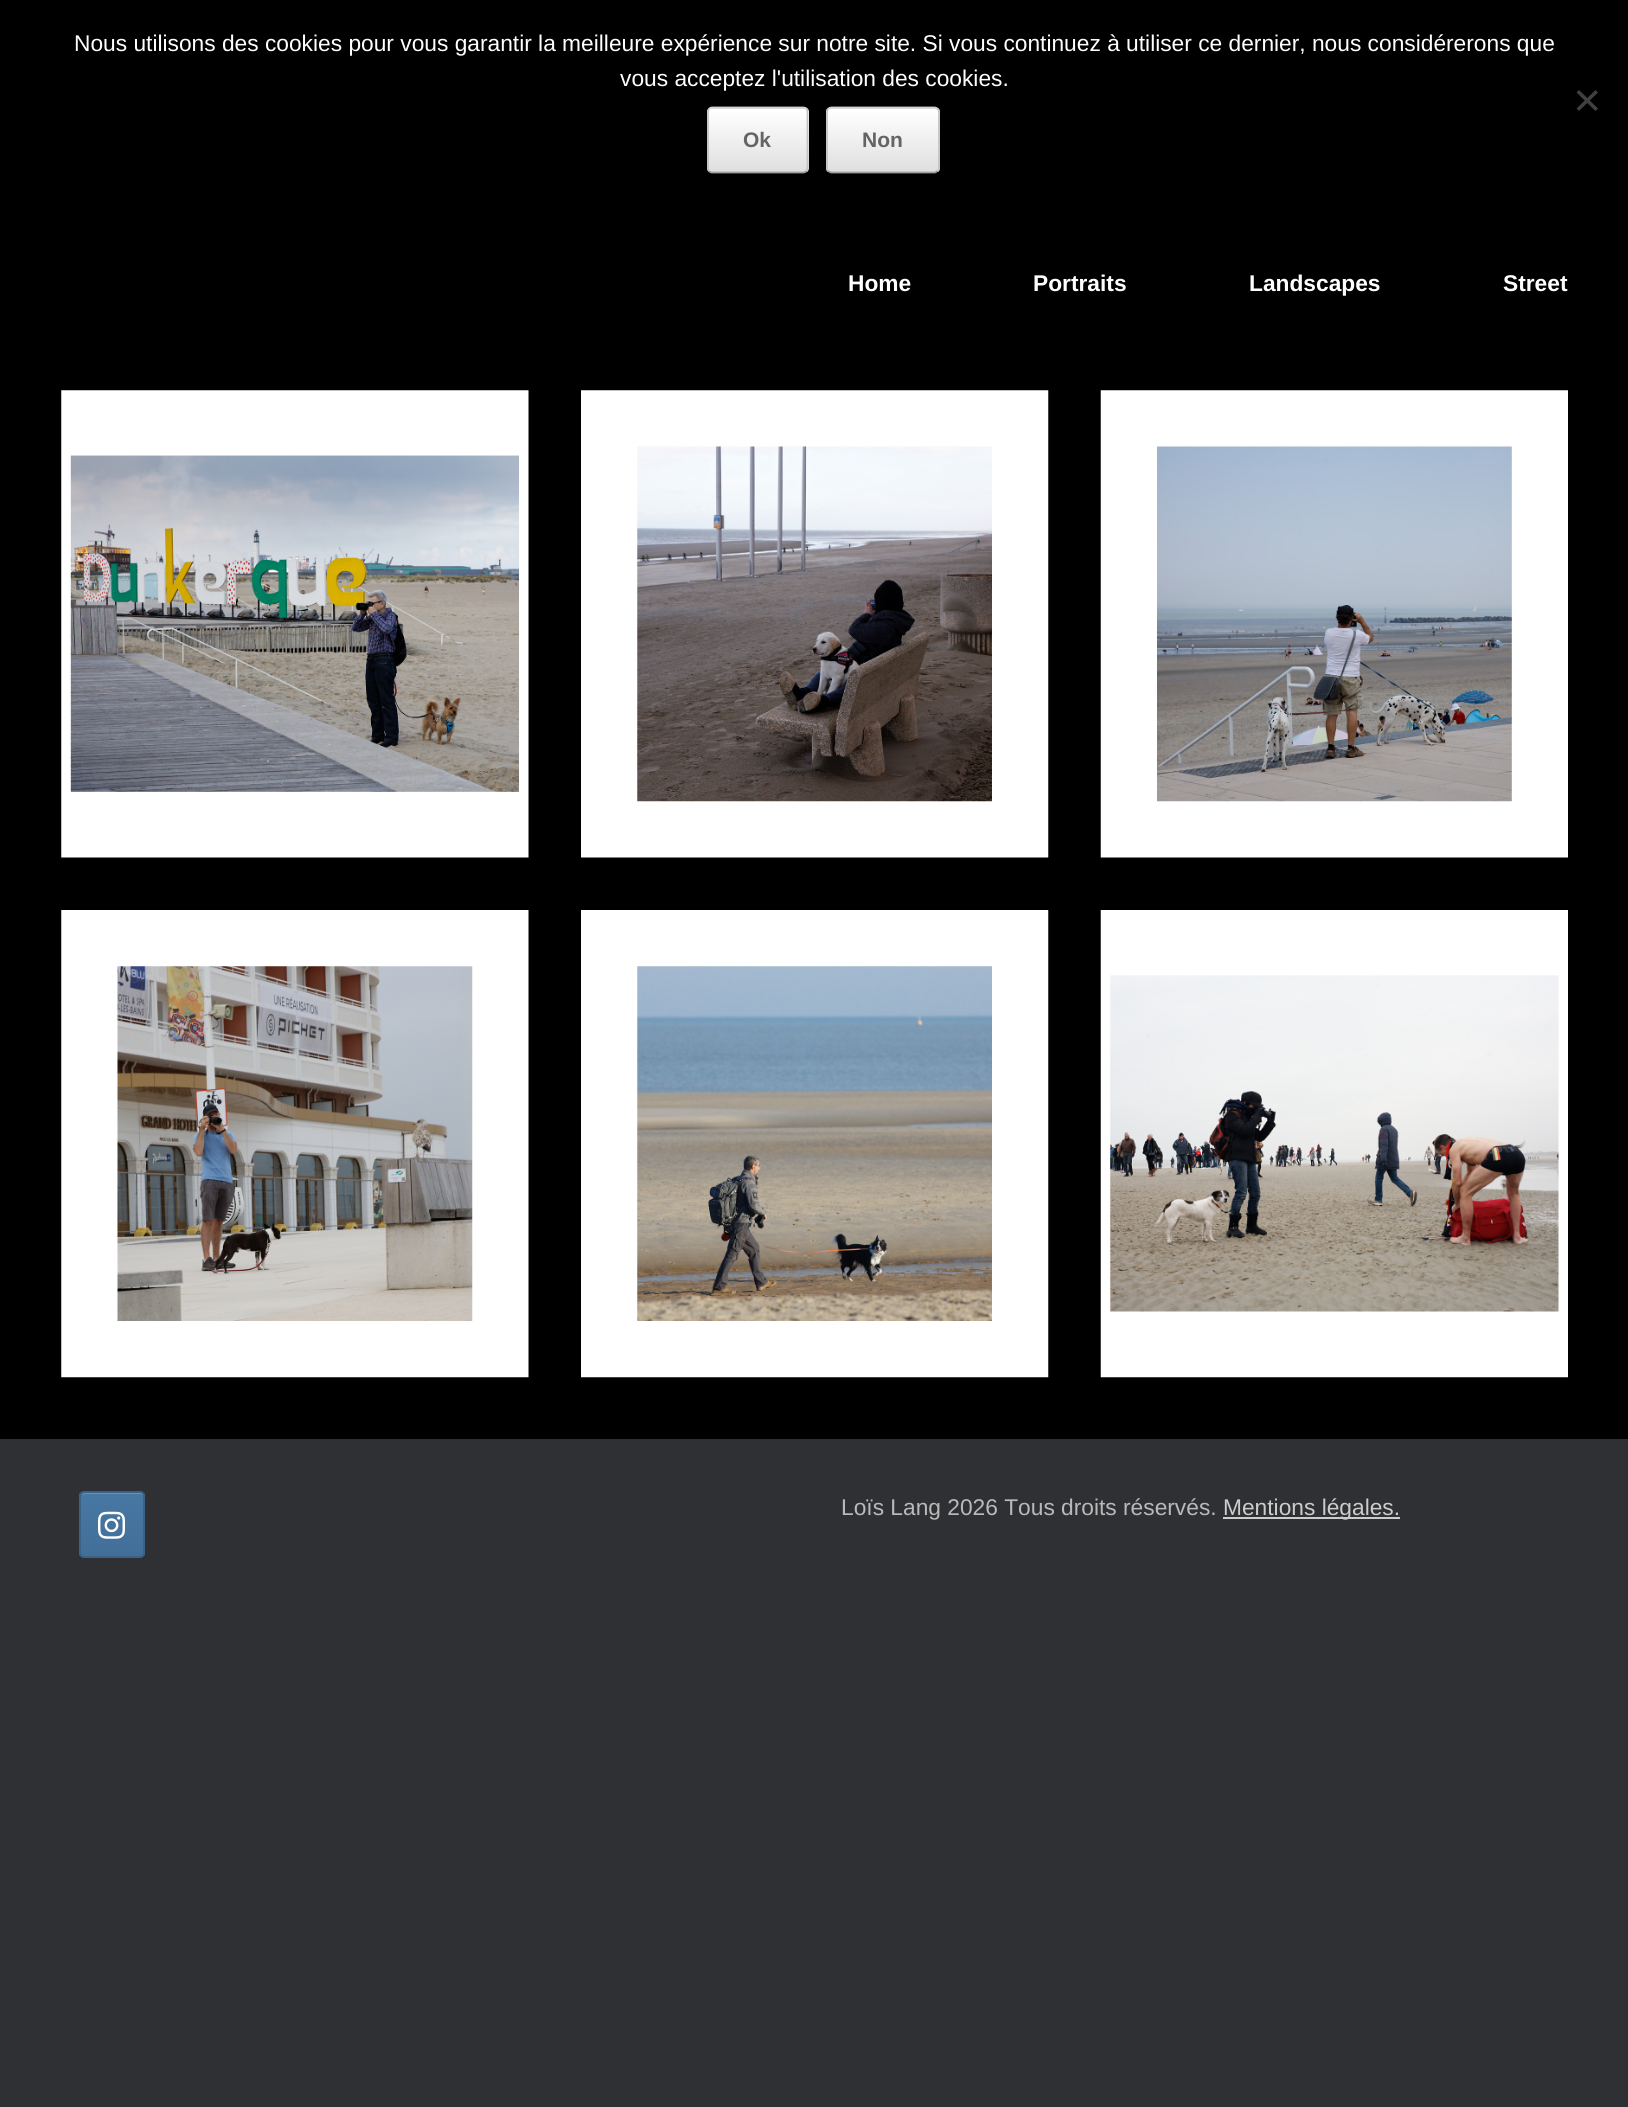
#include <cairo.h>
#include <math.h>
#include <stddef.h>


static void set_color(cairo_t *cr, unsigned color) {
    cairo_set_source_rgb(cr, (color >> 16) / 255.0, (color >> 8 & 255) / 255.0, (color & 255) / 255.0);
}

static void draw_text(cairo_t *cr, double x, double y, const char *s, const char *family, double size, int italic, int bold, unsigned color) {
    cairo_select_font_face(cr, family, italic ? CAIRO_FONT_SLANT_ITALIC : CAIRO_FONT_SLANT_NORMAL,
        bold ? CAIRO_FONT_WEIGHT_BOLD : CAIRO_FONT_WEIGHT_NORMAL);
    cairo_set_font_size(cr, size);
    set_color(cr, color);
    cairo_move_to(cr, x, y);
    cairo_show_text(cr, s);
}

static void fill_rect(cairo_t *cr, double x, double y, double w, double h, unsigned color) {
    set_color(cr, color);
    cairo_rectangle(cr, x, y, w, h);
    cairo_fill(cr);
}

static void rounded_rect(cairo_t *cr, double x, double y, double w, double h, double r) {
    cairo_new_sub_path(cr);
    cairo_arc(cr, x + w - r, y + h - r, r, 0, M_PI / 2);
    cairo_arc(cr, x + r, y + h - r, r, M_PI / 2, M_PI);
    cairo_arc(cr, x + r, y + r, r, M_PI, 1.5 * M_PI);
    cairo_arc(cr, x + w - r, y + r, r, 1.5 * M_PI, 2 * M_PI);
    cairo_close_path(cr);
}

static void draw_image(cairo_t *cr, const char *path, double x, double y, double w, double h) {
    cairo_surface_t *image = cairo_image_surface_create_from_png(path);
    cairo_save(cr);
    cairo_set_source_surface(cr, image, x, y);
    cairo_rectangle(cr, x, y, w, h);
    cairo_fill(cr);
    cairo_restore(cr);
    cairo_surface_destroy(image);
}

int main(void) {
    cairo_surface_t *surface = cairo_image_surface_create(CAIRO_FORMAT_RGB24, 1628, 2107);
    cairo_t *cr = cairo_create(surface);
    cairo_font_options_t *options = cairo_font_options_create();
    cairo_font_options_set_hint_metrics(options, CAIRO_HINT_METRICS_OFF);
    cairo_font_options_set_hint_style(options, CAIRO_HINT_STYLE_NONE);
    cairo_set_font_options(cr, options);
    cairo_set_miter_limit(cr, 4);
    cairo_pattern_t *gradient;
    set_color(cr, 0x2F3033);
    cairo_paint(cr);
    fill_rect(cr, 0, 0, 1628, 1439, 0x000000);
    draw_text(cr, 74, 51, "Nous utilisons des cookies pour vous garantir la meilleure expérience sur notre site. Si vous continuez à utiliser ce dernier, nous considérerons que", "Liberation Sans", 22.75, 0, 0, 0xFFFFFF);
    draw_text(cr, 620, 86, "vous acceptez l'utilisation des cookies.", "Liberation Sans", 22.75, 0, 0, 0xFFFFFF);
    set_color(cr, 0x404040);
    cairo_new_path(cr);
    cairo_move_to(cr, 1595.5, 90);
    cairo_line_to(cr, 1598, 92.5);
    cairo_line_to(cr, 1579, 111);
    cairo_line_to(cr, 1576.5, 108.5);
    cairo_close_path(cr);
    cairo_fill(cr);
    cairo_new_path(cr);
    cairo_move_to(cr, 1576.5, 92.5);
    cairo_line_to(cr, 1579, 90);
    cairo_line_to(cr, 1598, 108.5);
    cairo_line_to(cr, 1595.5, 111);
    cairo_close_path(cr);
    cairo_fill(cr);
    cairo_save(cr);
    rounded_rect(cr, 707, 107, 102, 66, 5);
    cairo_clip(cr);
    gradient = cairo_pattern_create_linear(709, 109, 709, 46);
    cairo_pattern_add_color_stop_rgba(gradient, 0, 0.875, 0.875, 0.875, 1);
    cairo_pattern_add_color_stop_rgba(gradient, 1, 1, 1, 1, 1);
    cairo_set_source(cr, gradient);
    cairo_pattern_destroy(gradient);
    cairo_rectangle(cr, 707, 107, 102, 2);
    cairo_fill(cr);
    gradient = cairo_pattern_create_linear(709, 172, 709, 109);
    cairo_pattern_add_color_stop_rgba(gradient, 0, 0.875, 0.875, 0.875, 1);
    cairo_pattern_add_color_stop_rgba(gradient, 1, 1, 1, 1, 1);
    cairo_set_source(cr, gradient);
    cairo_pattern_destroy(gradient);
    cairo_rectangle(cr, 707, 109, 102, 63);
    cairo_fill(cr);
    cairo_restore(cr);
    cairo_new_path(cr);
    cairo_move_to(cr, 709, 109);
    cairo_curve_to(cr, 710, 108, 711, 107.5, 712, 107.5);
    cairo_line_to(cr, 803, 107.5);
    cairo_curve_to(cr, 804.5, 107.5, 805.5, 108, 806.5, 109);
    set_color(cr, 0xD2D2D2);
    cairo_set_line_width(cr, 1.8);
    cairo_stroke(cr);
    cairo_new_path(cr);
    cairo_move_to(cr, 806.5, 109);
    cairo_curve_to(cr, 807, 109.5, 807.5, 111, 807.5, 112);
    cairo_line_to(cr, 807.5, 168);
    cairo_curve_to(cr, 807.5, 169, 807, 170.5, 806.5, 171);
    set_color(cr, 0xC3C3C3);
    cairo_stroke(cr);
    cairo_new_path(cr);
    cairo_move_to(cr, 806.5, 171);
    cairo_curve_to(cr, 805.5, 172, 804.5, 172.5, 803, 172.5);
    cairo_line_to(cr, 712, 172.5);
    cairo_curve_to(cr, 711, 172.5, 710, 172, 709, 171);
    set_color(cr, 0x9F9F9F);
    cairo_stroke(cr);
    cairo_new_path(cr);
    cairo_move_to(cr, 709, 171);
    cairo_curve_to(cr, 708.5, 170.5, 708, 169, 708, 168);
    cairo_line_to(cr, 708, 112);
    cairo_curve_to(cr, 708, 111, 708.5, 109.5, 709, 109);
    set_color(cr, 0xC3C3C3);
    cairo_stroke(cr);
    draw_text(cr, 743, 147, "Ok", "Liberation Sans", 21, 0, 1, 0x646464);
    cairo_save(cr);
    rounded_rect(cr, 826, 107, 114, 66, 5);
    cairo_clip(cr);
    gradient = cairo_pattern_create_linear(828, 109, 828, 46);
    cairo_pattern_add_color_stop_rgba(gradient, 0, 0.875, 0.875, 0.875, 1);
    cairo_pattern_add_color_stop_rgba(gradient, 1, 1, 1, 1, 1);
    cairo_set_source(cr, gradient);
    cairo_pattern_destroy(gradient);
    cairo_rectangle(cr, 826, 107, 114, 2);
    cairo_fill(cr);
    gradient = cairo_pattern_create_linear(828, 172, 828, 109);
    cairo_pattern_add_color_stop_rgba(gradient, 0, 0.875, 0.875, 0.875, 1);
    cairo_pattern_add_color_stop_rgba(gradient, 1, 1, 1, 1, 1);
    cairo_set_source(cr, gradient);
    cairo_pattern_destroy(gradient);
    cairo_rectangle(cr, 826, 109, 114, 63);
    cairo_fill(cr);
    cairo_restore(cr);
    cairo_new_path(cr);
    cairo_move_to(cr, 828, 109);
    cairo_line_to(cr, 831, 107.5);
    cairo_line_to(cr, 935, 107.5);
    cairo_line_to(cr, 937.5, 109);
    set_color(cr, 0xD2D2D2);
    cairo_stroke(cr);
    cairo_new_path(cr);
    cairo_move_to(cr, 937.5, 109);
    cairo_curve_to(cr, 938.5, 109.5, 939, 111, 939, 112);
    cairo_line_to(cr, 939, 168);
    cairo_curve_to(cr, 939, 169, 938.5, 170.5, 937.5, 171);
    set_color(cr, 0xC3C3C3);
    cairo_stroke(cr);
    cairo_new_path(cr);
    cairo_move_to(cr, 937.5, 171);
    cairo_line_to(cr, 935, 172.5);
    cairo_line_to(cr, 831, 172.5);
    cairo_line_to(cr, 828, 171);
    set_color(cr, 0x9F9F9F);
    cairo_stroke(cr);
    cairo_new_path(cr);
    cairo_move_to(cr, 828, 171);
    cairo_curve_to(cr, 827.5, 170.5, 827, 169, 827, 168);
    cairo_line_to(cr, 827, 112);
    cairo_curve_to(cr, 827, 111, 827.5, 109.5, 828, 109);
    set_color(cr, 0xC3C3C3);
    cairo_stroke(cr);
    draw_text(cr, 862, 147, "Non", "Liberation Sans", 21, 0, 1, 0x646464);
    draw_text(cr, 848, 291, "Home", "Liberation Sans", 22.75, 0, 1, 0xFFFFFF);
    draw_text(cr, 1033, 291, "Portraits", "Liberation Sans", 22.75, 0, 1, 0xFFFFFF);
    draw_text(cr, 1249, 291, "Landscapes", "Liberation Sans", 22.75, 0, 1, 0xFFFFFF);
    draw_text(cr, 1503, 291, "Street", "Liberation Sans", 22.75, 0, 1, 0xFFFFFF);
    draw_image(cr, "assets/img1.png", 61, 390, 468, 468);
    draw_image(cr, "assets/img2.png", 581, 390, 468, 468);
    draw_image(cr, "assets/img3.png", 1100, 390, 468, 468);
    draw_image(cr, "assets/img4.png", 61, 910, 468, 468);
    draw_image(cr, "assets/img5.png", 581, 910, 468, 468);
    draw_image(cr, "assets/img6.png", 1100, 910, 468, 468);
    cairo_save(cr);
    rounded_rect(cr, 79, 1491, 66, 67, 5);
    cairo_clip(cr);
    gradient = cairo_pattern_create_linear(81, 1556, 81, 1493);
    cairo_pattern_add_color_stop_rgba(gradient, 0, 0.259, 0.435, 0.596, 1);
    cairo_pattern_add_color_stop_rgba(gradient, 1, 0.278, 0.467, 0.639, 1);
    cairo_set_source(cr, gradient);
    cairo_pattern_destroy(gradient);
    cairo_rectangle(cr, 79, 1493, 66, 63);
    cairo_fill(cr);
    cairo_restore(cr);
    set_color(cr, 0x6C92B5);
    cairo_new_path(cr);
    cairo_move_to(cr, 84, 1494);
    cairo_line_to(cr, 140, 1494);
    cairo_curve_to(cr, 142, 1494, 144, 1496, 144, 1498);
    cairo_line_to(cr, 144, 1497);
    cairo_curve_to(cr, 144, 1495, 142, 1493, 140, 1493);
    cairo_line_to(cr, 85, 1493);
    cairo_curve_to(cr, 84, 1493, 82, 1494, 82, 1495);
    cairo_close_path(cr);
    cairo_fill(cr);
    rounded_rect(cr, 80, 1492, 64, 65, 4);
    set_color(cr, 0x3A6286);
    cairo_set_line_width(cr, 2);
    cairo_stroke(cr);
    draw_image(cr, "assets/img7.png", 98, 1511, 27, 28);
    draw_text(cr, 841, 1515, "Loïs Lang 2026 Tous droits réservés.", "Liberation Sans", 22.75, 0, 0, 0xB9B9B9);
    fill_rect(cr, 1223, 1517, 177, 2, 0xCCCCCC);
    draw_text(cr, 1223, 1515, "Mentions légales.", "Liberation Sans", 22.75, 0, 0, 0xCCCCCC);
    cairo_surface_write_to_png(surface, "output.png");
    cairo_font_options_destroy(options);
    cairo_destroy(cr);
    cairo_surface_destroy(surface);
    return 0;
}
